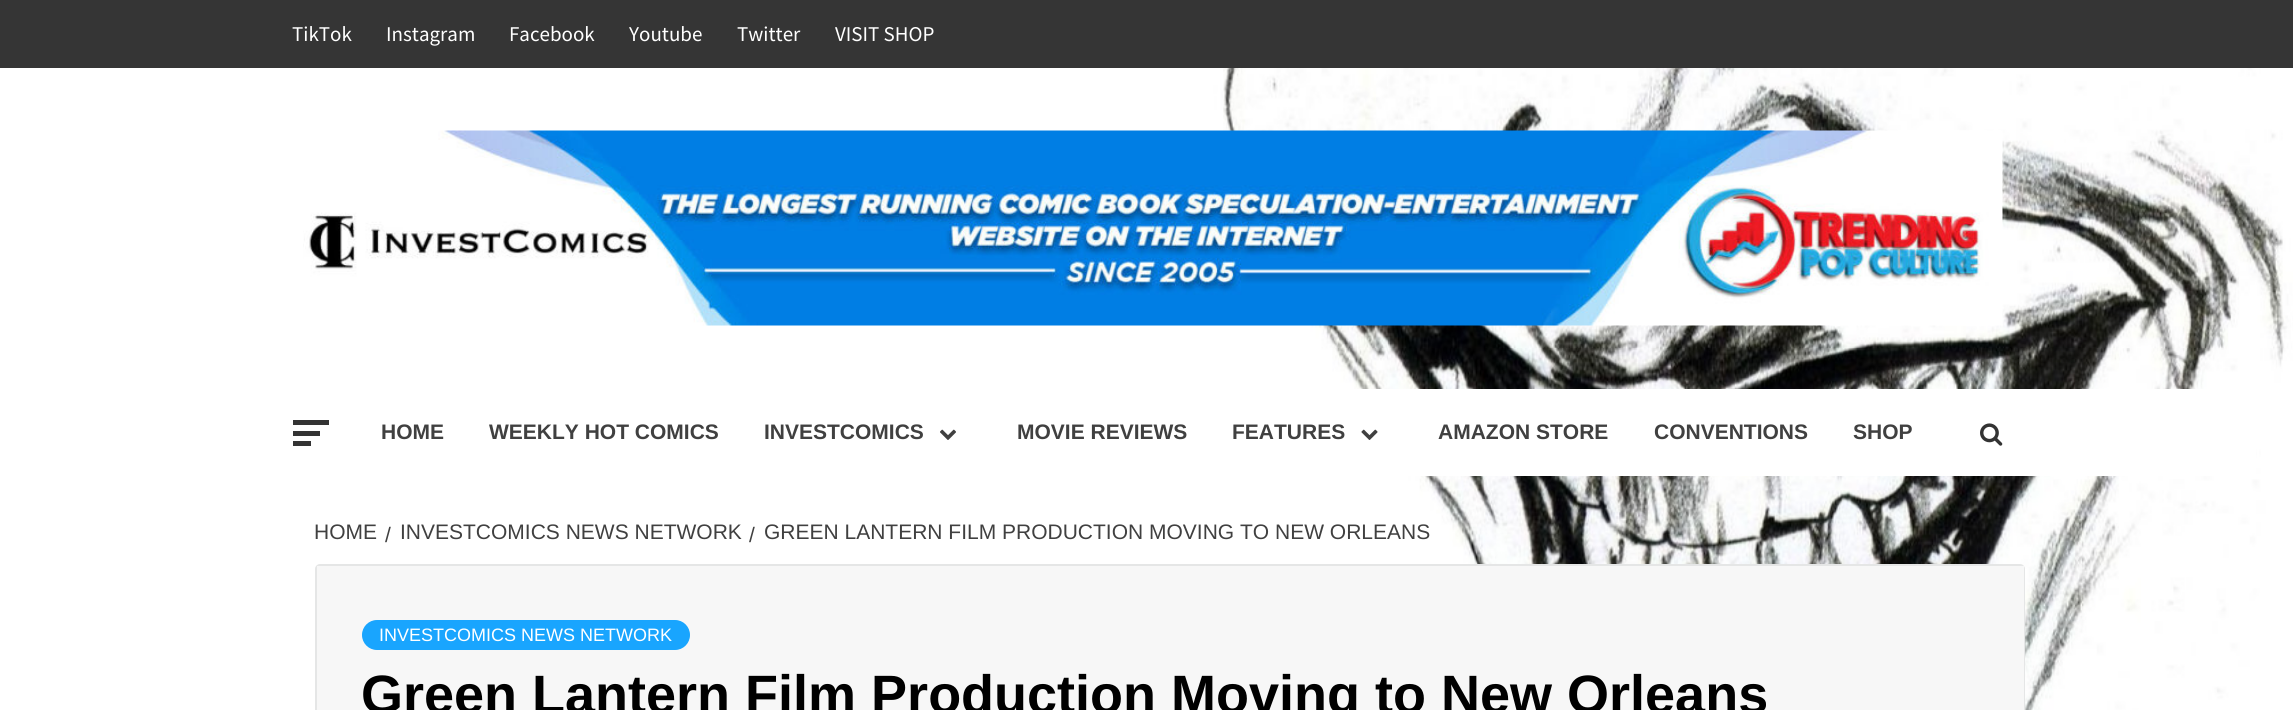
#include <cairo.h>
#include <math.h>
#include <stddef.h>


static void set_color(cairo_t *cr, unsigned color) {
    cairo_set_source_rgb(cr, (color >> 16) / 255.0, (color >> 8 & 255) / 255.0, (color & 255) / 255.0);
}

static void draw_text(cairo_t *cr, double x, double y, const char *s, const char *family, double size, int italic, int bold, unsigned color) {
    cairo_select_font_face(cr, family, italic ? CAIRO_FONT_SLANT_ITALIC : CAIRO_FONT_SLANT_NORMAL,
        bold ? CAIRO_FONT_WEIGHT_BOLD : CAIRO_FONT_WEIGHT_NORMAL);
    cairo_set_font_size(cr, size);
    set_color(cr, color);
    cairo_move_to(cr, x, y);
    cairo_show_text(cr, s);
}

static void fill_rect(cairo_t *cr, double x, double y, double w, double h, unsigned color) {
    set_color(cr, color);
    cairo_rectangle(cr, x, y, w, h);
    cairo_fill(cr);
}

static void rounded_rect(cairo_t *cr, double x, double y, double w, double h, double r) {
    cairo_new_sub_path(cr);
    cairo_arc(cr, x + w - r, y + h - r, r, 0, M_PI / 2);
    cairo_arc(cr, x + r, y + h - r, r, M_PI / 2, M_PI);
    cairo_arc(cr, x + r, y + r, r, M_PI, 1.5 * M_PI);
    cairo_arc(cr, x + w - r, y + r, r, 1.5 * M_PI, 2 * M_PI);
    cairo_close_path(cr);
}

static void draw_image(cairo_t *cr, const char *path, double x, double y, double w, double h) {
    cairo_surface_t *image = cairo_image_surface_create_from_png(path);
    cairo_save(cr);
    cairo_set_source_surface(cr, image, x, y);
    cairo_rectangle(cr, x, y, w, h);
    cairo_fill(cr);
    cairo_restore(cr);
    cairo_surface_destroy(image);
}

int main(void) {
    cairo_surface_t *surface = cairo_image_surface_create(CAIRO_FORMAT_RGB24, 2293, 710);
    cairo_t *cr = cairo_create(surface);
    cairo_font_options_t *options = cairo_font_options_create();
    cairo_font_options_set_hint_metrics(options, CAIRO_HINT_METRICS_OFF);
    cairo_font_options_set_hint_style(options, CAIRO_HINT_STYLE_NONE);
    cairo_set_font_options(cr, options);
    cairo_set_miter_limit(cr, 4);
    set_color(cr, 0xFFFFFF);
    cairo_paint(cr);
    draw_image(cr, "assets/img1.png", 0, 68, 2293, 642);
    fill_rect(cr, 0, 0, 2293, 68, 0x353535);
    draw_text(cr, 292, 41, "TikTok", "Source Sans Pro", 21, 0, 0, 0xFFFFFF);
    draw_text(cr, 386, 41, "Instagram", "Source Sans Pro", 21, 0, 0, 0xFFFFFF);
    draw_text(cr, 509, 41, "Facebook", "Source Sans Pro", 21, 0, 0, 0xFFFFFF);
    draw_text(cr, 629, 41, "Youtube", "Source Sans Pro", 21, 0, 0, 0xFFFFFF);
    draw_text(cr, 737, 41, "Twitter", "Source Sans Pro", 21, 0, 0, 0xFFFFFF);
    draw_text(cr, 835, 41, "VISIT SHOP", "Source Sans Pro", 21, 0, 0, 0xFFFFFF);
    draw_image(cr, "assets/img2.png", 303, 130, 1700, 196);
    fill_rect(cr, 1354, 389, 902, 87, 0xFFFFFF);
    fill_rect(cr, 293, 420, 36, 5, 0x333333);
    fill_rect(cr, 293, 431, 27, 5, 0x333333);
    fill_rect(cr, 293, 441, 18, 5, 0x333333);
    draw_text(cr, 381, 439, "HOME", "Liberation Sans", 21, 0, 1, 0x404040);
    draw_text(cr, 489, 439, "WEEKLY HOT COMICS", "Liberation Sans", 21, 0, 1, 0x404040);
    draw_text(cr, 764, 439, "INVESTCOMICS", "Liberation Sans", 21, 0, 1, 0x404040);
    draw_image(cr, "assets/img3.png", 940, 429, 16, 11);
    draw_text(cr, 1017, 439, "MOVIE REVIEWS", "Liberation Sans", 21, 0, 1, 0x404040);
    draw_text(cr, 1232, 439, "FEATURES", "Liberation Sans", 21, 0, 1, 0x404040);
    draw_image(cr, "assets/img4.png", 1361, 429, 17, 11);
    draw_text(cr, 1438, 439, "AMAZON STORE", "Liberation Sans", 21, 0, 1, 0x404040);
    draw_text(cr, 1654, 439, "CONVENTIONS", "Liberation Sans", 21, 0, 1, 0x404040);
    draw_text(cr, 1853, 439, "SHOP", "Liberation Sans", 21, 0, 1, 0x404040);
    draw_image(cr, "assets/img5.png", 1980, 423, 23, 23);
    draw_text(cr, 314, 539, "HOME", "Liberation Sans", 21, 0, 0, 0x404040);
    draw_text(cr, 385, 542, "/", "Liberation Sans", 21, 0, 0, 0x404040);
    draw_text(cr, 400, 539, "INVESTCOMICS NEWS NETWORK", "Liberation Sans", 21, 0, 0, 0x404040);
    draw_text(cr, 749, 542, "/", "Liberation Sans", 21, 0, 0, 0x404040);
    draw_text(cr, 764, 539, "GREEN LANTERN FILM PRODUCTION MOVING TO NEW ORLEANS", "Liberation Sans", 21, 0, 0, 0x404040);
    rounded_rect(cr, 316, 565, 1708, 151, 4);
    set_color(cr, 0xE5E6E6);
    cairo_stroke(cr);
    fill_rect(cr, 317, 566, 1707, 144, 0xF7F7F7);
    set_color(cr, 0x19A5FE);
    rounded_rect(cr, 362, 620, 328, 30, 15);
    cairo_fill(cr);
    draw_text(cr, 379, 641, "INVESTCOMICS NEWS NETWORK", "Liberation Sans", 18, 0, 0, 0xFFFFFF);
    draw_text(cr, 361, 713, "Green Lantern Film Production Moving to New Orleans", "Liberation Sans", 54, 0, 1, 0x000000);
    cairo_surface_write_to_png(surface, "output.png");
    cairo_font_options_destroy(options);
    cairo_destroy(cr);
    cairo_surface_destroy(surface);
    return 0;
}
